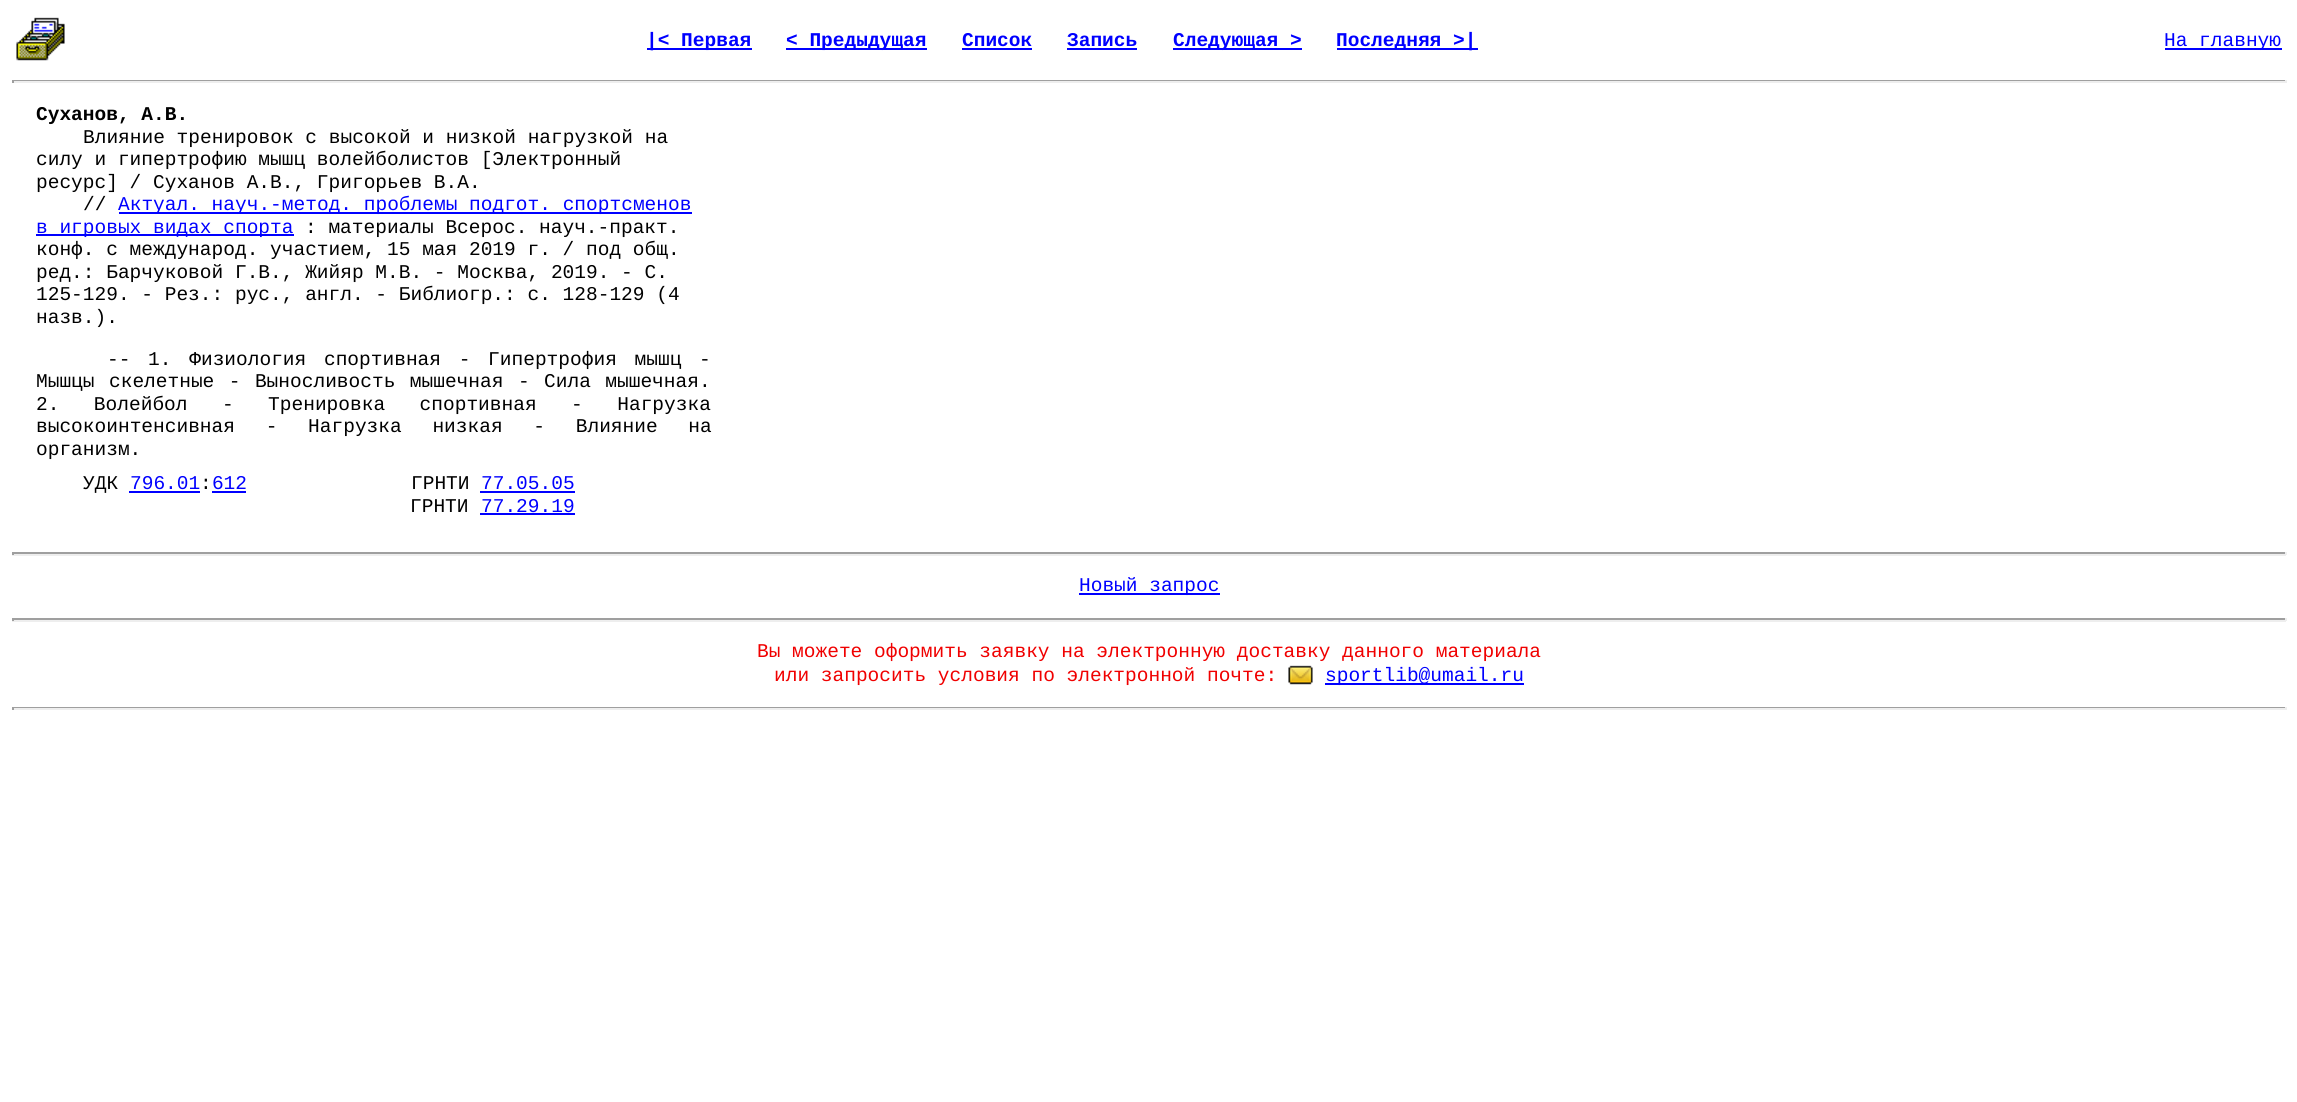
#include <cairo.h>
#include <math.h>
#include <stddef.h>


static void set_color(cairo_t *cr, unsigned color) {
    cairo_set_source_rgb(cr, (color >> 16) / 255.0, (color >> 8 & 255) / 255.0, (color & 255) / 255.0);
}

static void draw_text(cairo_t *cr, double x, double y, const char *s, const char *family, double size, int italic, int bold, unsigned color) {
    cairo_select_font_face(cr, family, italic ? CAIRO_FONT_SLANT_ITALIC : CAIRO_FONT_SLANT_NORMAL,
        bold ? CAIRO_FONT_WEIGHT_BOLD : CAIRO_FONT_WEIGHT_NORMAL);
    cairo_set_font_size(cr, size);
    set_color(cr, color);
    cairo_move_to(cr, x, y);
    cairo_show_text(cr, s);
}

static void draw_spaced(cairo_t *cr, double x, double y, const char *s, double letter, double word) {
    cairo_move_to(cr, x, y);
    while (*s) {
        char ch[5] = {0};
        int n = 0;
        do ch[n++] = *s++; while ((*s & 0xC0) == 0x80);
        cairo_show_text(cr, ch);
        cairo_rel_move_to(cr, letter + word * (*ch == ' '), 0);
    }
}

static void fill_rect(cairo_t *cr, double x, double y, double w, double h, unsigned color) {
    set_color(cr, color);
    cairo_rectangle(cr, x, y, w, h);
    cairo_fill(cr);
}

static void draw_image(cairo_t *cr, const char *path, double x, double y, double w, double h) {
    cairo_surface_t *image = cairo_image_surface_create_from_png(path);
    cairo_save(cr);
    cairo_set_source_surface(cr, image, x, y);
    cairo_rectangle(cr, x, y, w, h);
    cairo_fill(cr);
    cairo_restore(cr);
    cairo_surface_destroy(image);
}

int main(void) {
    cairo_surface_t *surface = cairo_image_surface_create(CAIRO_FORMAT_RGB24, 2297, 1102);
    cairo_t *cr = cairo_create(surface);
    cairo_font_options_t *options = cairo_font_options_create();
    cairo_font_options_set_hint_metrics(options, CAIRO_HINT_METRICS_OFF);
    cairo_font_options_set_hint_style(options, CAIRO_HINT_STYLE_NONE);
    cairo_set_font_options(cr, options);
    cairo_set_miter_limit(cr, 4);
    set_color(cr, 0xFFFFFF);
    cairo_paint(cr);
    draw_image(cr, "assets/img1.png", 16, 17, 49, 44);
    fill_rect(cr, 647, 48, 105, 2, 0x0000FF);
    draw_text(cr, 646, 46, "|< Первая", "Liberation Mono", 19.5, 0, 1, 0x0000FF);
    fill_rect(cr, 786, 48, 141, 2, 0x0000FF);
    draw_text(cr, 786, 46, "< Предыдущая", "Liberation Mono", 19.5, 0, 1, 0x0000FF);
    draw_text(cr, 962, 46, "Список", "Liberation Mono", 19.5, 0, 1, 0x0000FF);
    fill_rect(cr, 962, 48, 70, 2, 0x0000FF);
    draw_text(cr, 1067, 46, "Запись", "Liberation Mono", 19.5, 0, 1, 0x0000FF);
    fill_rect(cr, 1067, 48, 70, 2, 0x0000FF);
    fill_rect(cr, 1173, 48, 129, 2, 0x0000FF);
    draw_text(cr, 1173, 46, "Следующая >", "Liberation Mono", 19.5, 0, 1, 0x0000FF);
    fill_rect(cr, 1337, 48, 141, 2, 0x0000FF);
    draw_text(cr, 1336, 46, "Последняя >|", "Liberation Mono", 19.5, 0, 1, 0x0000FF);
    fill_rect(cr, 2165, 48, 117, 2, 0x0000FF);
    draw_text(cr, 2164, 46, "На главную", "Liberation Mono", 19.5, 0, 0, 0x0000FF);
    fill_rect(cr, 12, 80, 2274, 1, 0x9F9F9F);
    fill_rect(cr, 2285, 80, 2, 3, 0xEEEEEE);
    fill_rect(cr, 12, 81, 2274, 2, 0xEEEEEE);
    fill_rect(cr, 12, 80, 2, 3, 0x9F9F9F);
    draw_text(cr, 36, 120, "Суханов, А.В.", "Liberation Mono", 19.5, 0, 1, 0x000000);
    draw_text(cr, 83, 143, "Влияние тренировок с высокой и низкой нагрузкой на", "Liberation Mono", 19.5, 0, 0, 0x000000);
    draw_text(cr, 36, 165, "силу и гипертрофию мышц волейболистов [Электронный", "Liberation Mono", 19.5, 0, 0, 0x000000);
    draw_text(cr, 36, 188, "ресурс] / Суханов А.В., Григорьев В.А.", "Liberation Mono", 19.5, 0, 0, 0x000000);
    draw_text(cr, 83, 210, "//", "Liberation Mono", 19.5, 0, 0, 0x000000);
    fill_rect(cr, 119, 212, 573, 2, 0x0000FF);
    draw_text(cr, 118, 210, "Актуал. науч.-метод. проблемы подгот. спортсменов", "Liberation Mono", 19.5, 0, 0, 0x0000FF);
    fill_rect(cr, 36, 234, 258, 2, 0x0000FF);
    draw_text(cr, 36, 233, "в игровых видах спорта", "Liberation Mono", 19.5, 0, 0, 0x0000FF);
    draw_text(cr, 305, 233, ": материалы Всерос. науч.-практ.", "Liberation Mono", 19.5, 0, 0, 0x000000);
    draw_text(cr, 36, 255, "конф. с международ. участием, 15 мая 2019 г. / под общ.", "Liberation Mono", 19.5, 0, 0, 0x000000);
    draw_text(cr, 36, 278, "ред.: Барчуковой Г.В., Жийяр М.В. - Москва, 2019. - С.", "Liberation Mono", 19.5, 0, 0, 0x000000);
    draw_text(cr, 36, 300, "125-129. - Рез.: рус., англ. - Библиогр.: с. 128-129 (4", "Liberation Mono", 19.5, 0, 0, 0x000000);
    draw_text(cr, 36, 323, "назв.).", "Liberation Mono", 19.5, 0, 0, 0x000000);
    draw_spaced(cr, 107, 365, "-- 1. Физиология спортивная - Гипертрофия мышц -", 0, 6);
    draw_spaced(cr, 36, 387, "Мышцы скелетные - Выносливость мышечная - Сила мышечная.", 0, 2.75);
    draw_spaced(cr, 36, 410, "2. Волейбол - Тренировка спортивная - Нагрузка", 0, 22.75);
    draw_spaced(cr, 36, 432, "высокоинтенсивная - Нагрузка низкая - Влияние на", 0, 19);
    draw_text(cr, 36, 455, "организм.", "Liberation Mono", 19.5, 0, 0, 0x000000);
    draw_text(cr, 83, 489, "УДК", "Liberation Mono", 19.5, 0, 0, 0x000000);
    draw_text(cr, 130, 489, "796.01 612", "Liberation Mono", 19.5, 0, 0, 0x0000FF);
    fill_rect(cr, 129, 491, 71, 2, 0x0000FF);
    draw_text(cr, 411, 489, "ГРНТИ", "Liberation Mono", 19.5, 0, 0, 0x000000);
    draw_text(cr, 481, 489, "77.05.05", "Liberation Mono", 19.5, 0, 0, 0x0000FF);
    fill_rect(cr, 480, 491, 95, 2, 0x0000FF);
    draw_text(cr, 200, 489, ":", "Liberation Mono", 19.5, 0, 0, 0x000000);
    fill_rect(cr, 212, 491, 34, 2, 0x0000FF);
    draw_text(cr, 410, 512, "ГРНТИ", "Liberation Mono", 19.5, 0, 0, 0x000000);
    draw_text(cr, 481, 512, "77.29.19", "Liberation Mono", 19.5, 0, 0, 0x0000FF);
    fill_rect(cr, 480, 513, 95, 2, 0x0000FF);
    fill_rect(cr, 12, 552, 2274, 2, 0x9F9F9F);
    fill_rect(cr, 2285, 552, 2, 3, 0xEEEEEE);
    fill_rect(cr, 12, 554, 2274, 2, 0xEEEEEE);
    fill_rect(cr, 12, 552, 2, 3, 0x9F9F9F);
    fill_rect(cr, 1079, 593, 141, 2, 0x0000FF);
    draw_text(cr, 1079, 591, "Новый запрос", "Liberation Mono", 19.5, 0, 0, 0x0000FF);
    fill_rect(cr, 12, 618, 2274, 2, 0x9F9F9F);
    fill_rect(cr, 2285, 618, 2, 3, 0xEEEEEE);
    fill_rect(cr, 12, 620, 2274, 2, 0xEEEEEE);
    fill_rect(cr, 12, 618, 2, 3, 0x9F9F9F);
    draw_text(cr, 757, 657, "Вы можете оформить заявку на электронную доставку данного материала", "Liberation Mono", 19.5, 0, 0, 0xF00000);
    draw_text(cr, 774, 681, "или запросить условия по электронной почте:", "Liberation Mono", 19.5, 0, 0, 0xF00000);
    draw_image(cr, "assets/img2.png", 1288, 665, 25, 20);
    fill_rect(cr, 1325, 683, 199, 2, 0x0000FF);
    draw_text(cr, 1325, 681, "sportlib@umail.ru", "Liberation Mono", 19.5, 0, 0, 0x0000FF);
    fill_rect(cr, 12, 707, 2274, 1, 0x9F9F9F);
    fill_rect(cr, 2285, 707, 2, 3, 0xEEEEEE);
    fill_rect(cr, 12, 708, 2274, 2, 0xEEEEEE);
    fill_rect(cr, 12, 707, 2, 3, 0x9F9F9F);
    cairo_surface_write_to_png(surface, "output.png");
    cairo_font_options_destroy(options);
    cairo_destroy(cr);
    cairo_surface_destroy(surface);
    return 0;
}
